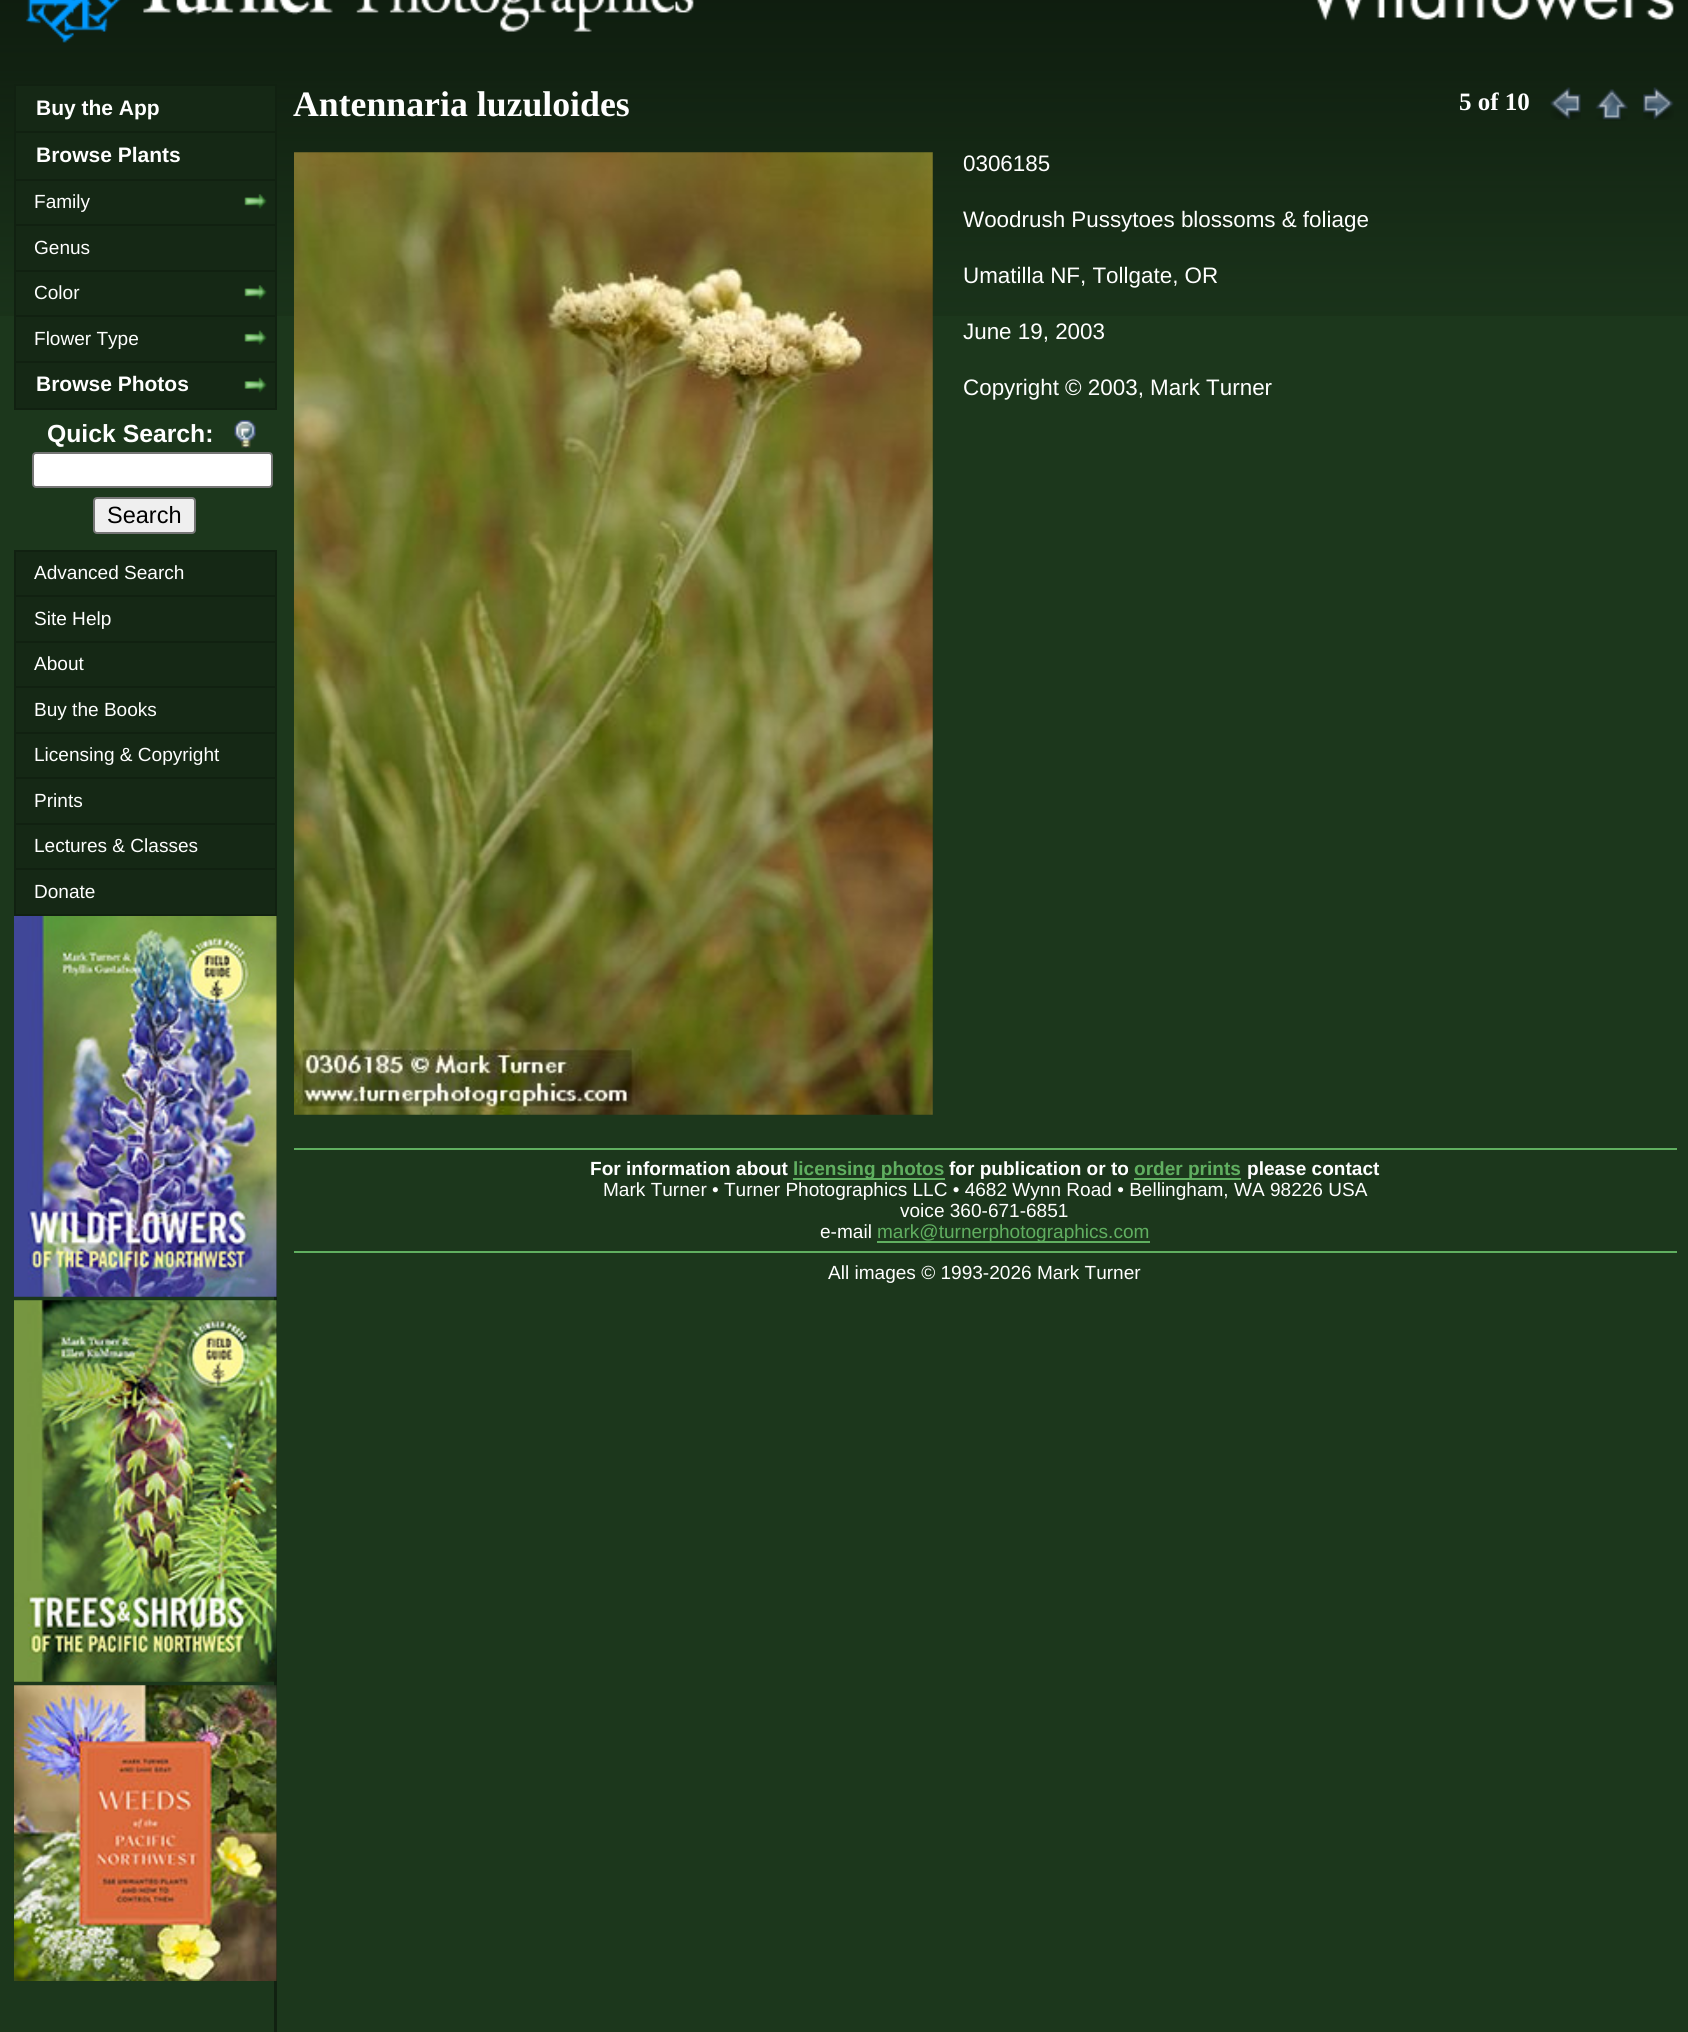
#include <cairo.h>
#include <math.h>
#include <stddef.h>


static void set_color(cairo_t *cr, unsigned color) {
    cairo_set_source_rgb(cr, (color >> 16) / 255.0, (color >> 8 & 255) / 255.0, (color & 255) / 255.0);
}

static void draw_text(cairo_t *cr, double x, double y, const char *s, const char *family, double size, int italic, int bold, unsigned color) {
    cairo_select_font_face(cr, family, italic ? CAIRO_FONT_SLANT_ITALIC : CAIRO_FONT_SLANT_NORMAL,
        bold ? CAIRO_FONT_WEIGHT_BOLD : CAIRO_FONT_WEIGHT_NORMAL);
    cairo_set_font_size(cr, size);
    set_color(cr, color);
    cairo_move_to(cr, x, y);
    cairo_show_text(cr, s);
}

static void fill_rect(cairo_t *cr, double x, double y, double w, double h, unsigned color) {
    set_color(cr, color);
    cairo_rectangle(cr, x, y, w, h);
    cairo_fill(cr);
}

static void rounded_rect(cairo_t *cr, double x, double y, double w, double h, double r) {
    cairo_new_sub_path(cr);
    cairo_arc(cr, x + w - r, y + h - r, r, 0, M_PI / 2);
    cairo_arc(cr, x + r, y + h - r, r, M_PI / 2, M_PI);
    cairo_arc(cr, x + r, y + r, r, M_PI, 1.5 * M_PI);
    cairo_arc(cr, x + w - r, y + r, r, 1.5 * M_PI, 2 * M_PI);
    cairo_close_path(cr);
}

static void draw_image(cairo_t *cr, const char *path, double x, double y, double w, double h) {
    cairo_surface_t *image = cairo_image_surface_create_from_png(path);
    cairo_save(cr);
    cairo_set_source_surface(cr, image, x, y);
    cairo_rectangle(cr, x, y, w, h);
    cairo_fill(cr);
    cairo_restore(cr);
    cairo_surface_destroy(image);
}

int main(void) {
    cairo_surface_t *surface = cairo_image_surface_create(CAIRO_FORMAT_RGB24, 1688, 2032);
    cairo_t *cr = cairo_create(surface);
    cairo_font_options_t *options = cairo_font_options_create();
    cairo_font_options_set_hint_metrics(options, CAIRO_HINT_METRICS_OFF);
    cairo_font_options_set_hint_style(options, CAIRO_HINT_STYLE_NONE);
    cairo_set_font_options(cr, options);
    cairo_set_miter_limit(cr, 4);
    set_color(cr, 0x1C371C);
    cairo_paint(cr);
    draw_image(cr, "assets/img1.png", 0, 0, 1688, 316);
    draw_image(cr, "assets/img2.png", 26, 0, 668, 43);
    draw_image(cr, "assets/img3.png", 1316, 0, 358, 22);
    fill_rect(cr, 274, 916, 3, 1116, 0x112111);
    fill_rect(cr, 16, 86, 259, 322, 0x152815);
    cairo_rectangle(cr, 15, 85, 261, 47);
    set_color(cr, 0x112111);
    cairo_stroke(cr);
    draw_text(cr, 36, 115, "Buy the App", "Liberation Sans", 21, 0, 1, 0xFFFFFF);
    fill_rect(cr, 275, 133, 2, 47, 0x112111);
    fill_rect(cr, 14, 179, 263, 2, 0x112111);
    fill_rect(cr, 14, 133, 2, 47, 0x112111);
    draw_text(cr, 36, 162, "Browse Plants", "Liberation Sans", 21, 0, 1, 0xFFFFFF);
    fill_rect(cr, 275, 180, 2, 91, 0x112111);
    fill_rect(cr, 14, 224, 263, 2, 0x112111);
    fill_rect(cr, 14, 180, 2, 46, 0x112111);
    draw_image(cr, "assets/img4.png", 244, 194, 23, 15);
    draw_text(cr, 34, 208, "Family", "Liberation Sans", 19.05, 0, 0, 0xFFFFFF);
    fill_rect(cr, 14, 270, 263, 2, 0x112111);
    fill_rect(cr, 14, 226, 2, 45, 0x112111);
    draw_text(cr, 34, 254, "Genus", "Liberation Sans", 19.05, 0, 0, 0xFFFFFF);
    fill_rect(cr, 275, 271, 2, 91, 0x112111);
    fill_rect(cr, 14, 315, 263, 2, 0x112111);
    fill_rect(cr, 14, 271, 2, 46, 0x112111);
    draw_image(cr, "assets/img4.png", 244, 285, 23, 15);
    draw_text(cr, 34, 299, "Color", "Liberation Sans", 19.05, 0, 0, 0xFFFFFF);
    fill_rect(cr, 14, 361, 263, 2, 0x112111);
    fill_rect(cr, 14, 317, 2, 45, 0x112111);
    draw_image(cr, "assets/img5.png", 244, 330, 23, 15);
    draw_text(cr, 34, 345, "Flower Type", "Liberation Sans", 19.05, 0, 0, 0xFFFFFF);
    fill_rect(cr, 275, 362, 2, 48, 0x112111);
    fill_rect(cr, 14, 408, 263, 2, 0x112111);
    fill_rect(cr, 14, 362, 2, 48, 0x112111);
    draw_image(cr, "assets/img6.png", 244, 377, 23, 16);
    draw_text(cr, 36, 391, "Browse Photos", "Liberation Sans", 21, 0, 1, 0xFFFFFF);
    draw_image(cr, "assets/img7.png", 234, 420, 22, 28);
    draw_text(cr, 47, 442, "Quick Search:", "Liberation Sans", 24.75, 0, 1, 0xFFFFFF);
    rounded_rect(cr, 33, 453, 239, 34, 3);
    cairo_fill_preserve(cr);
    set_color(cr, 0x767676);
    cairo_stroke(cr);
    set_color(cr, 0xEFEFEF);
    rounded_rect(cr, 94, 498, 101, 35, 3);
    cairo_fill_preserve(cr);
    set_color(cr, 0x767676);
    cairo_stroke(cr);
    draw_text(cr, 107, 523, "Search", "Liberation Sans", 23.5, 0, 0, 0x000000);
    fill_rect(cr, 16, 552, 259, 362, 0x152815);
    cairo_rectangle(cr, 15, 551, 261, 45);
    set_color(cr, 0x112111);
    cairo_stroke(cr);
    draw_text(cr, 34, 579, "Advanced Search", "Liberation Sans", 19.05, 0, 0, 0xFFFFFF);
    fill_rect(cr, 275, 597, 2, 45, 0x112111);
    fill_rect(cr, 14, 641, 263, 2, 0x112111);
    fill_rect(cr, 14, 597, 2, 45, 0x112111);
    draw_text(cr, 34, 625, "Site Help", "Liberation Sans", 19.05, 0, 0, 0xFFFFFF);
    fill_rect(cr, 275, 642, 2, 91, 0x112111);
    fill_rect(cr, 14, 686, 263, 2, 0x112111);
    fill_rect(cr, 14, 642, 2, 46, 0x112111);
    draw_text(cr, 34, 670, "About", "Liberation Sans", 19.05, 0, 0, 0xFFFFFF);
    fill_rect(cr, 14, 732, 263, 2, 0x112111);
    fill_rect(cr, 14, 688, 2, 45, 0x112111);
    draw_text(cr, 34, 716, "Buy the Books", "Liberation Sans", 19.05, 0, 0, 0xFFFFFF);
    fill_rect(cr, 275, 733, 2, 91, 0x112111);
    fill_rect(cr, 14, 777, 263, 2, 0x112111);
    fill_rect(cr, 14, 733, 2, 46, 0x112111);
    draw_text(cr, 34, 761, "Licensing & Copyright", "Liberation Sans", 19.05, 0, 0, 0xFFFFFF);
    fill_rect(cr, 14, 823, 263, 2, 0x112111);
    fill_rect(cr, 14, 779, 2, 45, 0x112111);
    draw_text(cr, 34, 807, "Prints", "Liberation Sans", 19.05, 0, 0, 0xFFFFFF);
    fill_rect(cr, 275, 824, 2, 91, 0x112111);
    fill_rect(cr, 14, 868, 263, 2, 0x112111);
    fill_rect(cr, 14, 824, 2, 46, 0x112111);
    draw_text(cr, 34, 852, "Lectures & Classes", "Liberation Sans", 19.05, 0, 0, 0xFFFFFF);
    fill_rect(cr, 14, 914, 263, 2, 0x112111);
    fill_rect(cr, 14, 870, 2, 45, 0x112111);
    draw_text(cr, 34, 898, "Donate", "Liberation Sans", 19.05, 0, 0, 0xFFFFFF);
    draw_image(cr, "assets/img8.png", 14, 916, 263, 381);
    draw_image(cr, "assets/img9.png", 14, 1300, 263, 382);
    draw_image(cr, "assets/img10.png", 14, 1685, 263, 296);
    draw_text(cr, 293, 116, "Antennaria luzuloides", "Liberation Serif", 35.75, 0, 1, 0xFFFFFF);
    draw_text(cr, 1459, 110, "5 of 10", "Liberation Serif", 25, 0, 1, 0xFFFFFF);
    draw_image(cr, "assets/img11.png", 1550, 87, 31, 33);
    draw_image(cr, "assets/img12.png", 1595, 89, 33, 32);
    draw_image(cr, "assets/img13.png", 1643, 87, 31, 33);
    draw_image(cr, "assets/img14.png", 294, 152, 639, 963);
    draw_text(cr, 963, 171, "0306185", "Liberation Sans", 22.4, 0, 0, 0xFFFFFF);
    draw_text(cr, 963, 227, "Woodrush Pussytoes blossoms & foliage", "Liberation Sans", 22.4, 0, 0, 0xFFFFFF);
    draw_text(cr, 963, 283, "Umatilla NF, Tollgate, OR", "Liberation Sans", 22.4, 0, 0, 0xFFFFFF);
    draw_text(cr, 963, 339, "June 19, 2003", "Liberation Sans", 22.4, 0, 0, 0xFFFFFF);
    draw_text(cr, 963, 395, "Copyright © 2003, Mark Turner", "Liberation Sans", 22.4, 0, 0, 0xFFFFFF);
    fill_rect(cr, 294, 1148, 1383, 2, 0x60AF60);
    draw_text(cr, 590, 1175, "For information about", "Liberation Sans", 19.05, 0, 1, 0xFFFFFF);
    fill_rect(cr, 793, 1178, 152, 2, 0x60AF60);
    draw_text(cr, 793, 1175, "licensing photos", "Liberation Sans", 19.05, 0, 1, 0x60AF60);
    draw_text(cr, 949, 1175, "for publication or to", "Liberation Sans", 19.05, 0, 1, 0xFFFFFF);
    fill_rect(cr, 1134, 1178, 107, 2, 0x60AF60);
    draw_text(cr, 1134, 1175, "order prints", "Liberation Sans", 19.05, 0, 1, 0x60AF60);
    draw_text(cr, 1247, 1175, "please contact", "Liberation Sans", 19.05, 0, 1, 0xFFFFFF);
    draw_text(cr, 603, 1196, "Mark Turner • Turner Photographics LLC • 4682 Wynn Road • Bellingham, WA 98226 USA", "Liberation Sans", 19.05, 0, 0, 0xFFFFFF);
    draw_text(cr, 900, 1217, "voice 360-671-6851", "Liberation Sans", 19.05, 0, 0, 0xFFFFFF);
    draw_text(cr, 820, 1238, "e-mail", "Liberation Sans", 19.05, 0, 0, 0xFFFFFF);
    fill_rect(cr, 877, 1241, 273, 2, 0x60AF60);
    draw_text(cr, 877, 1238, "mark@turnerphotographics.com", "Liberation Sans", 19.05, 0, 0, 0x60AF60);
    fill_rect(cr, 294, 1251, 1383, 2, 0x60AF60);
    draw_text(cr, 828, 1279, "All images © 1993-2026 Mark Turner", "Liberation Sans", 19.05, 0, 0, 0xFFFFFF);
    cairo_surface_write_to_png(surface, "output.png");
    cairo_font_options_destroy(options);
    cairo_destroy(cr);
    cairo_surface_destroy(surface);
    return 0;
}
